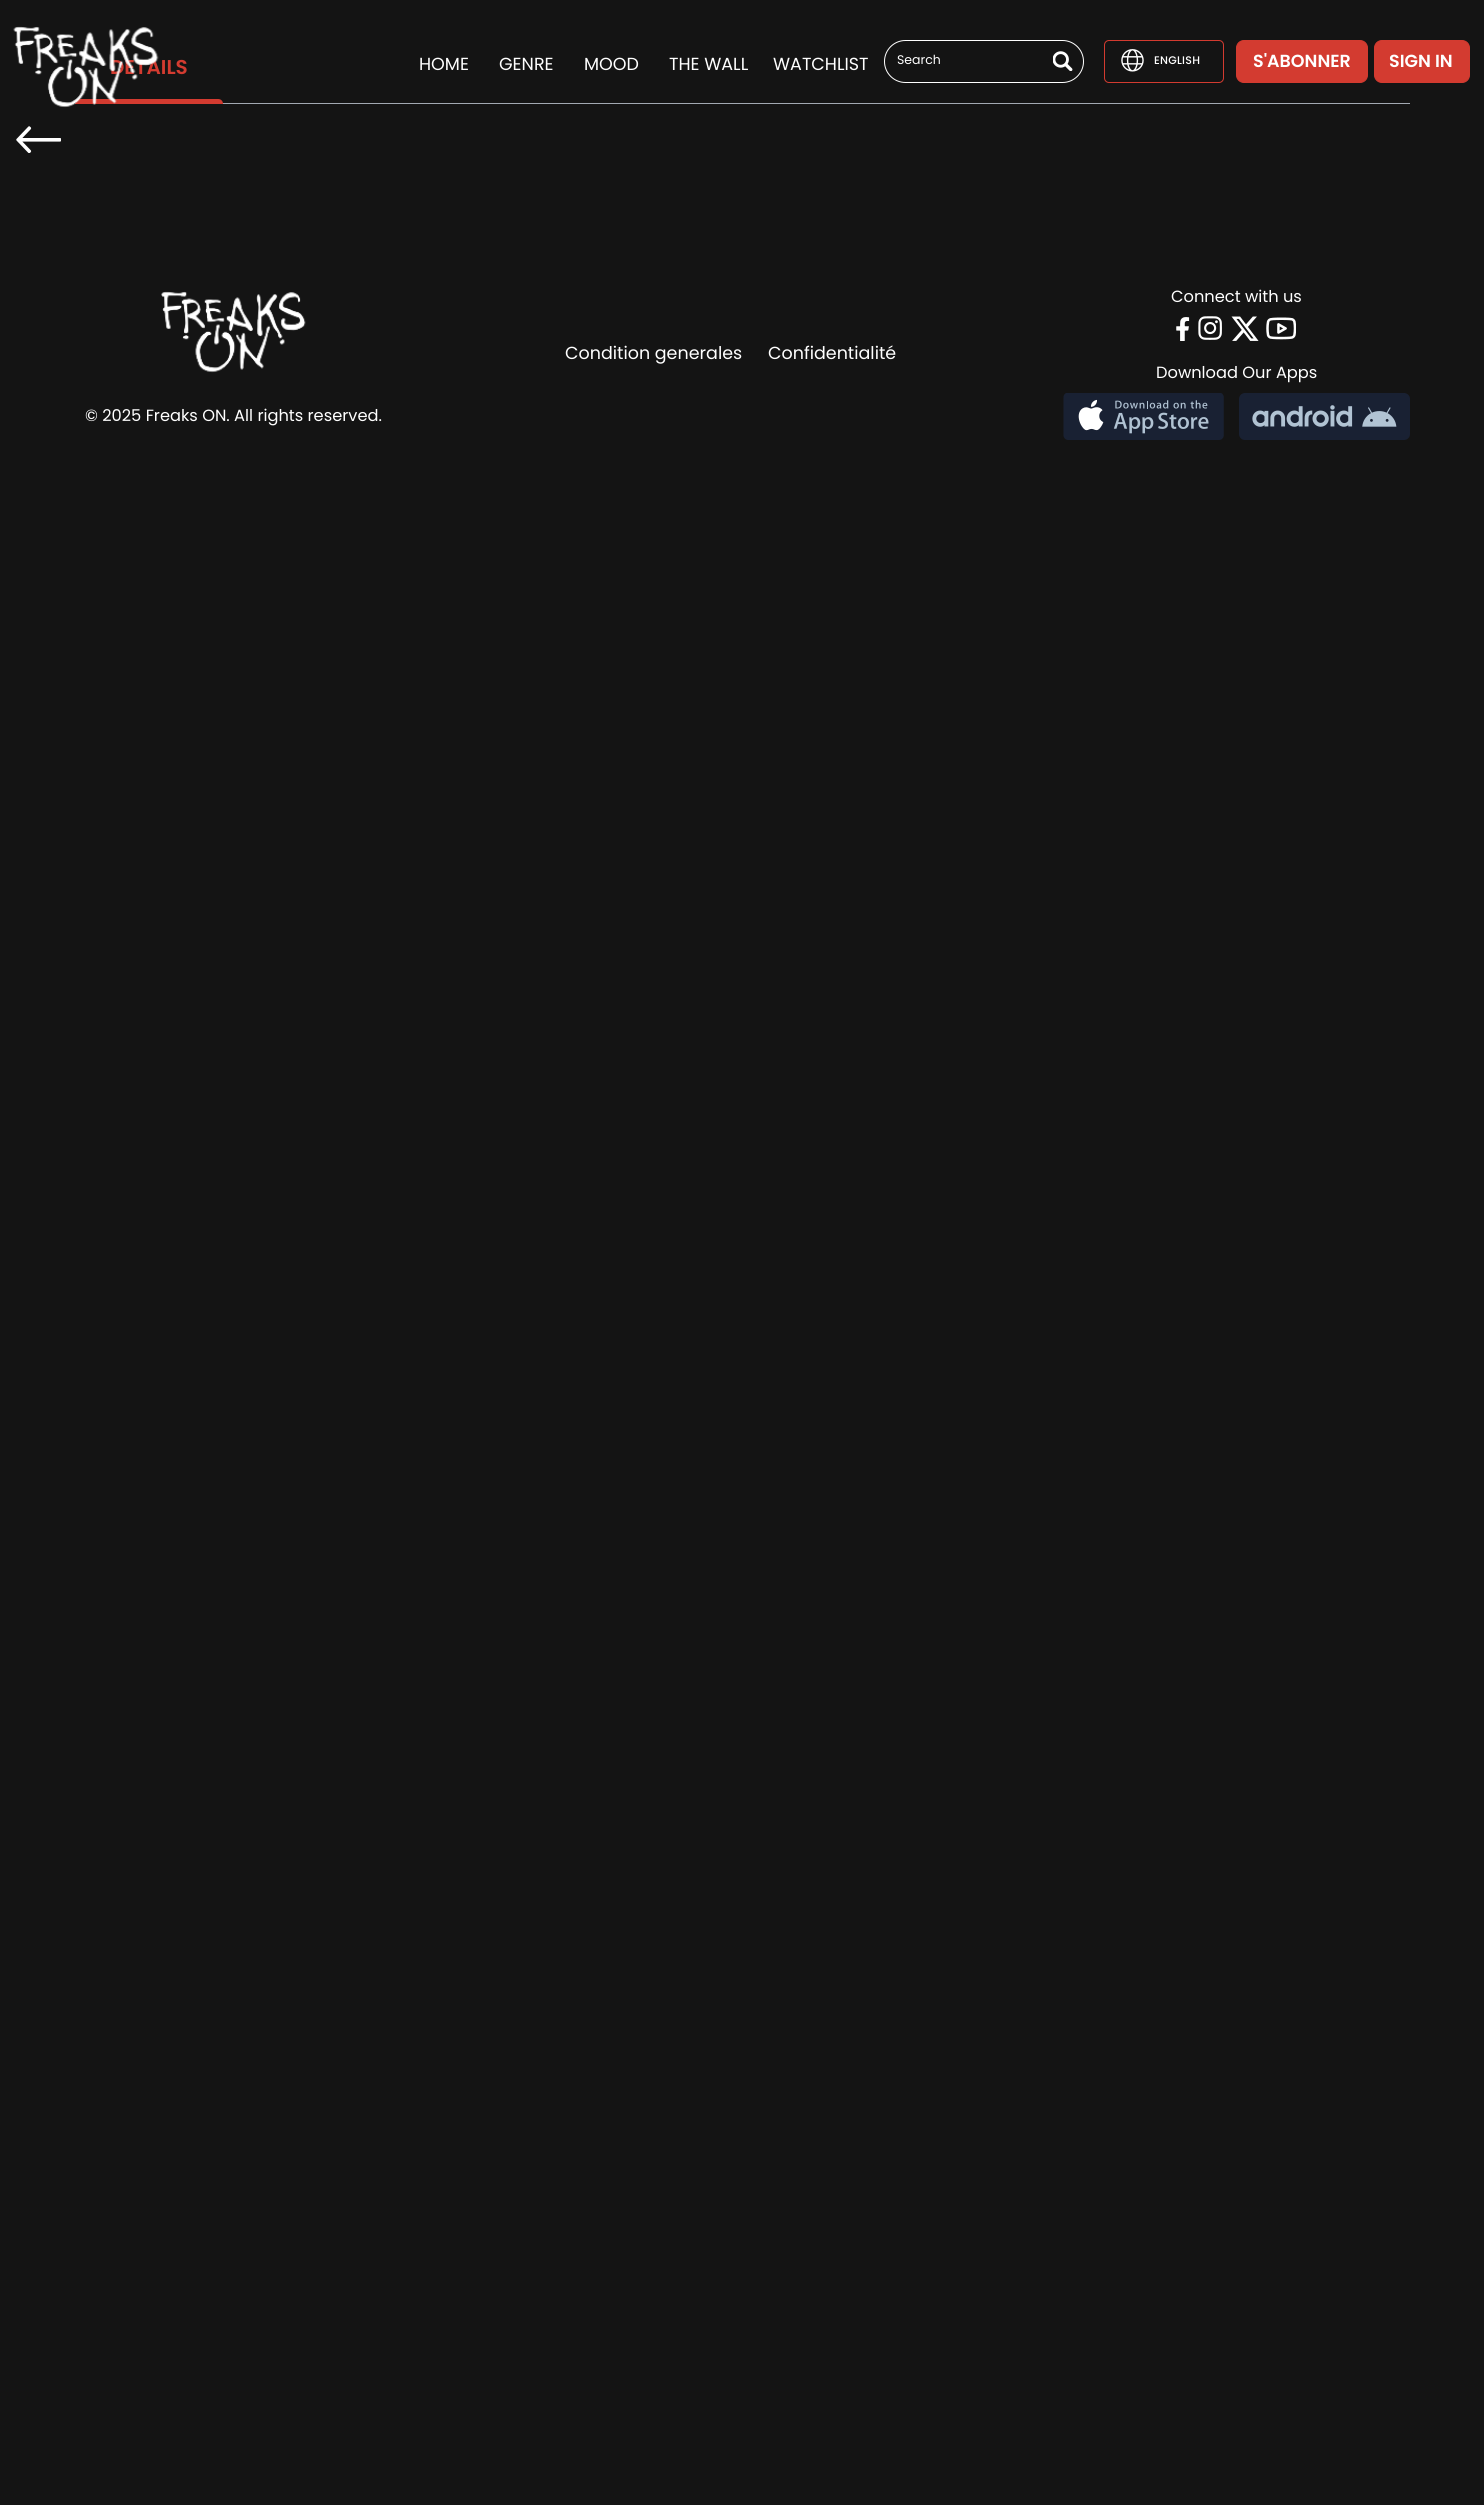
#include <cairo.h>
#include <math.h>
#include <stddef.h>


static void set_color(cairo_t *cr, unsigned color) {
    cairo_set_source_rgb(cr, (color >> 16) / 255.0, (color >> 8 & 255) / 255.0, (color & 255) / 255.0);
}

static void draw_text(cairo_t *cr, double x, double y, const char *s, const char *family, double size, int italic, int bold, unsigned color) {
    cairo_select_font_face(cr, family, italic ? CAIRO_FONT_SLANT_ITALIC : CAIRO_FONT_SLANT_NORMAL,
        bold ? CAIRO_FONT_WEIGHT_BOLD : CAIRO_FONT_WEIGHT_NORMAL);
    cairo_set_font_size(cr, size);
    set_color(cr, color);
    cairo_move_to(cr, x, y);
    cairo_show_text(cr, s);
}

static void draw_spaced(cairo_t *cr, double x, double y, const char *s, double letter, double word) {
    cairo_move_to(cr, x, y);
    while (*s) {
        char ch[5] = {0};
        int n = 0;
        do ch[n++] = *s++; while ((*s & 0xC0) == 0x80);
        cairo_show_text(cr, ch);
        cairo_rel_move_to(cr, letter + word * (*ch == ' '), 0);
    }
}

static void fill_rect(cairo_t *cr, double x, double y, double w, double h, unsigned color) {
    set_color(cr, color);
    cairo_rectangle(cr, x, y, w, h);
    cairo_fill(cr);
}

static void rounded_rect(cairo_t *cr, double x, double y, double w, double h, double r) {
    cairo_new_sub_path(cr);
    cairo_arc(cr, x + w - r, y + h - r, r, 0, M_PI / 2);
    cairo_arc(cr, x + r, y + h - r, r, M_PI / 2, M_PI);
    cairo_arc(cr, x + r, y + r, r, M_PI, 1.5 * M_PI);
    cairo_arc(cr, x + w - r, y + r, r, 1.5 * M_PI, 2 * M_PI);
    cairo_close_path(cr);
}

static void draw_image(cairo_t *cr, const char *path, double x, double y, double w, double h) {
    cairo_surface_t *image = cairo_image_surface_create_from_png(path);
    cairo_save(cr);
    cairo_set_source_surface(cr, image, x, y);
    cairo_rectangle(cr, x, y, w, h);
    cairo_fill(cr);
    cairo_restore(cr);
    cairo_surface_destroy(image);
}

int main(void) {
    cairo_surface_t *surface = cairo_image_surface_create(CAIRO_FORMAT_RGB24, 1484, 2505);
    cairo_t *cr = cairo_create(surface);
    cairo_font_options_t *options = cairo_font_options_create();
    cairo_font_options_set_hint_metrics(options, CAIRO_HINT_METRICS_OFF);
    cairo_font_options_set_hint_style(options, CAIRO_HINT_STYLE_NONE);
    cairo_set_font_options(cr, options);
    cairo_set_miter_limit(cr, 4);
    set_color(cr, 0x141414);
    cairo_paint(cr);
    fill_rect(cr, 75, 103, 1335, 1, 0xA3A9B2);
    draw_text(cr, 110, 74, "DETAILS", "Poppins SemiBold", 20, 0, 0, 0xD33B30);
    cairo_new_path(cr);
    cairo_move_to(cr, 80, 99);
    cairo_line_to(cr, 218, 99);
    cairo_curve_to(cr, 221, 99, 223, 101, 223, 104);
    cairo_line_to(cr, 75, 104);
    cairo_curve_to(cr, 75, 101, 77, 99, 80, 99);
    cairo_close_path(cr);
    cairo_fill(cr);
    draw_image(cr, "assets/img1.png", 16, 126, 45, 27);
    draw_image(cr, "assets/img2.png", 13, 26, 146, 82);
    draw_text(cr, 419, 70, "HOME", "Poppins", 17.5, 0, 0, 0xFFFFFF);
    draw_text(cr, 499, 70, "GENRE", "Poppins", 17.5, 0, 0, 0xFFFFFF);
    draw_text(cr, 584, 70, "MOOD", "Poppins", 17.5, 0, 0, 0xFFFFFF);
    draw_text(cr, 669, 70, "THE WALL", "Poppins", 17.5, 0, 0, 0xFFFFFF);
    draw_text(cr, 773, 70, "WATCHLIST", "Poppins", 17.5, 0, 0, 0xFFFFFF);
    rounded_rect(cr, 884.5, 40.5, 199, 42, 21);
    cairo_set_line_width(cr, 1);
    cairo_stroke(cr);
    draw_text(cr, 897, 64, "Search", "Poppins", 12.5, 0, 0, 0xFFFFFF);
    draw_image(cr, "assets/img3.png", 1053, 51, 20, 20);
    rounded_rect(cr, 1104.5, 40.5, 119, 42, 4.5);
    set_color(cr, 0xD33B30);
    cairo_stroke(cr);
    draw_image(cr, "assets/img4.png", 1121, 49, 23, 23);
    cairo_select_font_face(cr, "Poppins Medium", CAIRO_FONT_SLANT_NORMAL, CAIRO_FONT_WEIGHT_NORMAL);
    cairo_set_font_size(cr, 11);
    set_color(cr, 0xFFFFFF);
    draw_spaced(cr, 1154, 64, "ENGLISH", 0.25, 0);
    set_color(cr, 0xD33B30);
    rounded_rect(cr, 1236.5, 40.5, 131, 42, 7.5);
    cairo_fill_preserve(cr);
    cairo_stroke(cr);
    draw_text(cr, 1253, 67, "S'ABONNER", "Poppins SemiBold", 17.5, 0, 0, 0xFFFFFF);
    set_color(cr, 0xD33B30);
    rounded_rect(cr, 1374.5, 40.5, 95, 42, 7.5);
    cairo_fill_preserve(cr);
    cairo_stroke(cr);
    draw_text(cr, 1389, 67, "SIGN IN", "Poppins SemiBold", 17.5, 0, 0, 0xFFFFFF);
    draw_text(cr, 565, 359, "Condition generales", "Poppins", 17.5, 0, 0, 0xFFFFFF);
    draw_text(cr, 768, 359, "Confidentialité", "Poppins", 17.5, 0, 0, 0xFFFFFF);
    draw_text(cr, 1171, 302, "Connect with us", "Poppins", 16.25, 0, 0, 0xFFFFFF);
    draw_image(cr, "assets/img5.png", 1176, 317, 14, 24);
    draw_image(cr, "assets/img6.png", 1198, 316, 24, 24);
    draw_image(cr, "assets/img7.png", 1231, 316, 28, 25);
    draw_image(cr, "assets/img8.png", 1266, 317, 30, 23);
    draw_text(cr, 1156, 378, "Download Our Apps", "Poppins", 16.25, 0, 0, 0xFFFFFF);
    draw_image(cr, "assets/img9.png", 1063, 393, 161, 47);
    draw_image(cr, "assets/img10.png", 1239, 393, 171, 47);
    draw_image(cr, "assets/img11.png", 161, 291, 145, 82);
    draw_text(cr, 85, 421, "© 2025 Freaks ON. All rights reserved.", "Poppins", 16.25, 0, 0, 0xFFFFFF);
    cairo_surface_write_to_png(surface, "output.png");
    cairo_font_options_destroy(options);
    cairo_destroy(cr);
    cairo_surface_destroy(surface);
    return 0;
}
